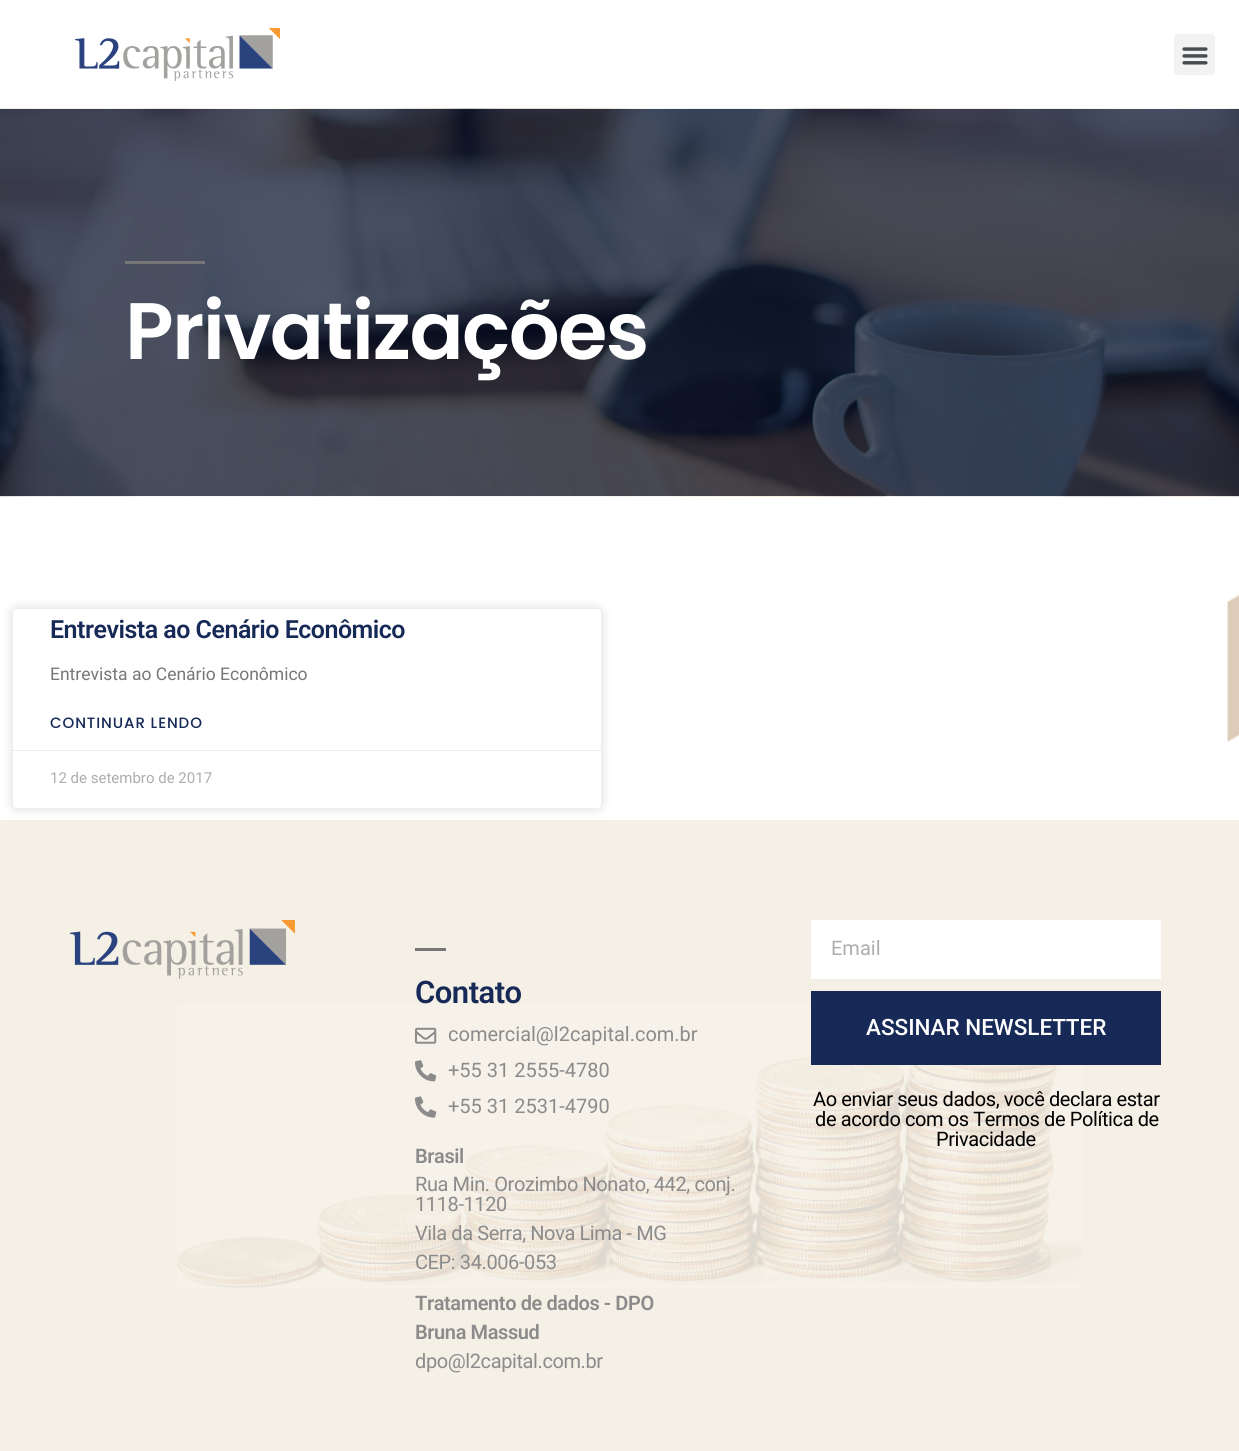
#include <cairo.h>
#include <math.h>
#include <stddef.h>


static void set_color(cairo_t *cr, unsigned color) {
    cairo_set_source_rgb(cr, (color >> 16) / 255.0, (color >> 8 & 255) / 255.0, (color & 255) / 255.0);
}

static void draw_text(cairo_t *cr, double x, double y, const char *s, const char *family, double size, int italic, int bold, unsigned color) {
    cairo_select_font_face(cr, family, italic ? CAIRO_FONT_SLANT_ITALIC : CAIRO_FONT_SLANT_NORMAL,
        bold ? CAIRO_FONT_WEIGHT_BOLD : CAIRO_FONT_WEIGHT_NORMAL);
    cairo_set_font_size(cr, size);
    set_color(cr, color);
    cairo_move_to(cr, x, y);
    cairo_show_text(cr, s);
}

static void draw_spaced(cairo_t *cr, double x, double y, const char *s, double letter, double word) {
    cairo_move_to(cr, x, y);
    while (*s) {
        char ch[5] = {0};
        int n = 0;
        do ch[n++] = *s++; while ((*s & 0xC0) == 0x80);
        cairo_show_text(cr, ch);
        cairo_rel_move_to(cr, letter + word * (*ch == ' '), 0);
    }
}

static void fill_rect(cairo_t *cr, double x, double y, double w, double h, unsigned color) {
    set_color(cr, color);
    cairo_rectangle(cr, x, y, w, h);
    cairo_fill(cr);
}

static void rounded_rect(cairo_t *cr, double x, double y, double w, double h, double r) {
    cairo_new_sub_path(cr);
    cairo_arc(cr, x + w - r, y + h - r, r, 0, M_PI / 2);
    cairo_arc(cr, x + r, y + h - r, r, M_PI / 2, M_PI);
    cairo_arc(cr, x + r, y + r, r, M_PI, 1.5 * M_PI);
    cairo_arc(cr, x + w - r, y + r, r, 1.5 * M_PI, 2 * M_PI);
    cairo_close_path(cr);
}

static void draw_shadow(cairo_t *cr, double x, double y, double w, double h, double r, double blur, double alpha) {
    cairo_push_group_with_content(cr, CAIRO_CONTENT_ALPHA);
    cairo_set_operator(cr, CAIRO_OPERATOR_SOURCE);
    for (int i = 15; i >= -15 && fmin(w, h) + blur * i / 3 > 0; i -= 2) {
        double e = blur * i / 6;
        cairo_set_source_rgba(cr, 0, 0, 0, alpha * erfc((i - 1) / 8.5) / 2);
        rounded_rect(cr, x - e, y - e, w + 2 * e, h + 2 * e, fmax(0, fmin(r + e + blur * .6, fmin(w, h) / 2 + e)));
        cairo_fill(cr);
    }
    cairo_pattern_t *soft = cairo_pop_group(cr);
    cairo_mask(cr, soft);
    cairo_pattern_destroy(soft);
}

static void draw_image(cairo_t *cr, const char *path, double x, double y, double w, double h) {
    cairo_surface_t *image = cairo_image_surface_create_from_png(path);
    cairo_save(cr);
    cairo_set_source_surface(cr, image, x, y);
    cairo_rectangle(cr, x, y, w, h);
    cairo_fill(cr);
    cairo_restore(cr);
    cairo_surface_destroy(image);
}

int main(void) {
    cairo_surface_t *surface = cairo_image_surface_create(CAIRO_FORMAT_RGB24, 1239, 1451);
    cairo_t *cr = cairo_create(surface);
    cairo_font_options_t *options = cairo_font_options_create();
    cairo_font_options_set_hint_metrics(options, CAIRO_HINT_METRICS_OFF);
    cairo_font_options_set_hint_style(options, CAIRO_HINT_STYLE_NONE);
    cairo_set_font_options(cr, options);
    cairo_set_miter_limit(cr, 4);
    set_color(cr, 0xFFFFFF);
    cairo_paint(cr);
    draw_image(cr, "assets/img1.png", 75, 28, 205, 53);
    set_color(cr, 0xF2F2F2);
    rounded_rect(cr, 1174, 34, 41, 41, 4);
    cairo_fill(cr);
    draw_image(cr, "assets/img2.png", 1182, 47, 26, 18);
    draw_image(cr, "assets/img3.png", 0, 108, 1239, 389);
    fill_rect(cr, 125, 261, 80, 3, 0x767676);
    cairo_select_font_face(cr, "Poppins SemiBold", CAIRO_FONT_SLANT_NORMAL, CAIRO_FONT_WEIGHT_NORMAL);
    cairo_set_font_size(cr, 80);
    set_color(cr, 0xFFFFFF);
    draw_spaced(cr, 125, 359, "Privatizações", -1.6, 0);
    draw_image(cr, "assets/img4.png", 1227, 594, 12, 148);
    set_color(cr, 0x000000);
    draw_shadow(cr, 13, 609, 588, 199, 4, 6, 0.15);
    set_color(cr, 0xFFFFFF);
    rounded_rect(cr, 13, 609, 588, 199, 4);
    cairo_fill(cr);
    cairo_select_font_face(cr, "Roboto SemiBold", CAIRO_FONT_SLANT_NORMAL, CAIRO_FONT_WEIGHT_NORMAL);
    cairo_set_font_size(cr, 25);
    set_color(cr, 0x172A57);
    draw_spaced(cr, 50, 638, "Entrevista ao Cenário Econômico", -0.5, 0);
    draw_text(cr, 50, 680, "Entrevista ao Cenário Econômico", "Roboto", 17.5, 0, 0, 0x777777);
    cairo_select_font_face(cr, "Poppins Medium", CAIRO_FONT_SLANT_NORMAL, CAIRO_FONT_WEIGHT_NORMAL);
    cairo_set_font_size(cr, 15);
    set_color(cr, 0x172A57);
    draw_spaced(cr, 50, 728, "CONTINUAR LENDO", 0.9, 0);
    fill_rect(cr, 13, 750, 588, 1, 0xEAEAEA);
    draw_text(cr, 50, 783, "12 de setembro de 2017", "Roboto", 15, 0, 0, 0xADADAD);
    fill_rect(cr, 0, 820, 1239, 631, 0xF5F0E6);
    draw_image(cr, "assets/img5.png", 70, 920, 225, 59);
    fill_rect(cr, 415, 948, 31, 3, 0x767676);
    cairo_select_font_face(cr, "Roboto SemiBold", CAIRO_FONT_SLANT_NORMAL, CAIRO_FONT_WEIGHT_NORMAL);
    cairo_set_font_size(cr, 31);
    set_color(cr, 0x172A57);
    draw_spaced(cr, 415, 1003, "Contato", -0.5, 0);
    draw_image(cr, "assets/img9.png", 177, 1004, 906, 284);
    draw_image(cr, "assets/img6.png", 415, 1027, 22, 17);
    draw_text(cr, 448, 1041, "comercial@l2capital.com.br", "Roboto", 20, 0, 0, 0x8B8B8B);
    draw_image(cr, "assets/img7.png", 415, 1060, 22, 22);
    draw_text(cr, 448, 1077, "+55 31 2555-4780", "Roboto", 20, 0, 0, 0x8B8B8B);
    draw_image(cr, "assets/img8.png", 415, 1096, 22, 22);
    draw_text(cr, 448, 1113, "+55 31 2531-4790", "Roboto", 20, 0, 0, 0x8B8B8B);
    cairo_select_font_face(cr, "Roboto SemiBold", CAIRO_FONT_SLANT_NORMAL, CAIRO_FONT_WEIGHT_NORMAL);
    draw_spaced(cr, 415, 1163, "Brasil", -0.4, 0);
    cairo_select_font_face(cr, "Roboto", CAIRO_FONT_SLANT_NORMAL, CAIRO_FONT_WEIGHT_NORMAL);
    draw_spaced(cr, 415, 1191, "Rua Min. Orozimbo Nonato, 442, conj.", -0.4, 0);
    draw_spaced(cr, 415, 1211, "1118-1120", -0.4, 0);
    draw_spaced(cr, 415, 1240, "Vila da Serra, Nova Lima - MG", -0.4, 0);
    draw_spaced(cr, 415, 1269, "CEP: 34.006-053", -0.4, 0);
    cairo_select_font_face(cr, "Roboto SemiBold", CAIRO_FONT_SLANT_NORMAL, CAIRO_FONT_WEIGHT_NORMAL);
    draw_spaced(cr, 415, 1310, "Tratamento de dados - DPO", -0.4, 0);
    draw_spaced(cr, 415, 1339, "Bruna Massud", -0.4, 0);
    cairo_select_font_face(cr, "Roboto", CAIRO_FONT_SLANT_NORMAL, CAIRO_FONT_WEIGHT_NORMAL);
    draw_spaced(cr, 415, 1368, "dpo@l2capital.com.br", -0.4, 0);
    fill_rect(cr, 811, 920, 350, 59, 0xFFFFFF);
    draw_text(cr, 831, 955, "Email", "Roboto", 20, 0, 0, 0xADADAD);
    fill_rect(cr, 811, 991, 350, 74, 0x172A57);
    draw_text(cr, 866, 1035, "ASSINAR NEWSLETTER", "Roboto Medium", 22.5, 0, 0, 0xFFFFFF);
    cairo_select_font_face(cr, "Roboto", CAIRO_FONT_SLANT_NORMAL, CAIRO_FONT_WEIGHT_NORMAL);
    cairo_set_font_size(cr, 20);
    set_color(cr, 0x000000);
    draw_spaced(cr, 813, 1106, "Ao enviar seus dados, você declara estar", -0.4, 0);
    draw_spaced(cr, 815, 1126, "de acordo com os Termos de Política de", -0.4, 0);
    draw_spaced(cr, 936, 1146, "Privacidade", -0.4, 0);
    cairo_surface_write_to_png(surface, "output.png");
    cairo_font_options_destroy(options);
    cairo_destroy(cr);
    cairo_surface_destroy(surface);
    return 0;
}
